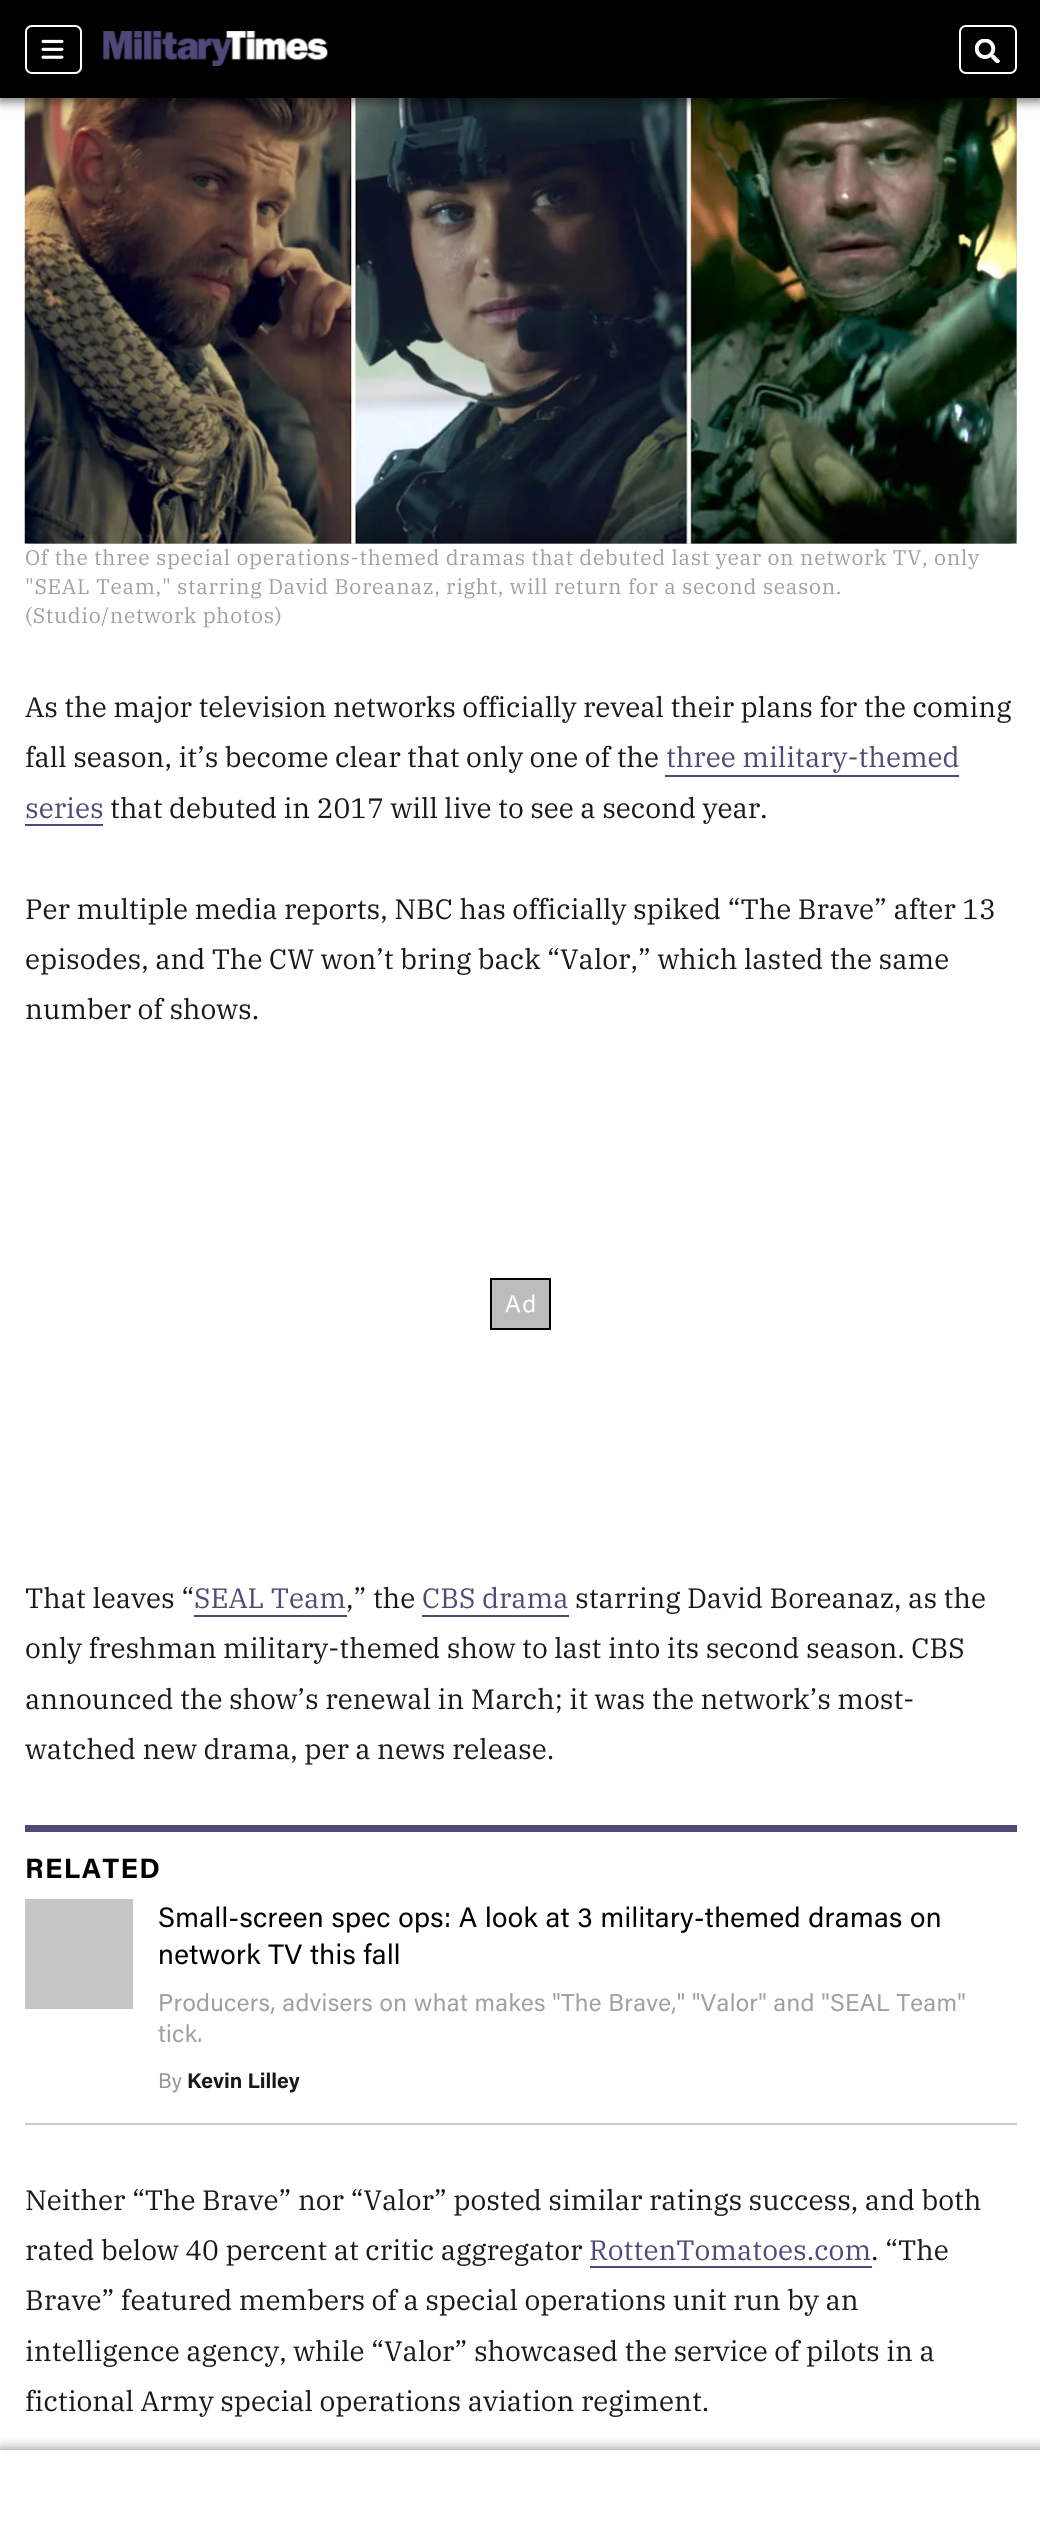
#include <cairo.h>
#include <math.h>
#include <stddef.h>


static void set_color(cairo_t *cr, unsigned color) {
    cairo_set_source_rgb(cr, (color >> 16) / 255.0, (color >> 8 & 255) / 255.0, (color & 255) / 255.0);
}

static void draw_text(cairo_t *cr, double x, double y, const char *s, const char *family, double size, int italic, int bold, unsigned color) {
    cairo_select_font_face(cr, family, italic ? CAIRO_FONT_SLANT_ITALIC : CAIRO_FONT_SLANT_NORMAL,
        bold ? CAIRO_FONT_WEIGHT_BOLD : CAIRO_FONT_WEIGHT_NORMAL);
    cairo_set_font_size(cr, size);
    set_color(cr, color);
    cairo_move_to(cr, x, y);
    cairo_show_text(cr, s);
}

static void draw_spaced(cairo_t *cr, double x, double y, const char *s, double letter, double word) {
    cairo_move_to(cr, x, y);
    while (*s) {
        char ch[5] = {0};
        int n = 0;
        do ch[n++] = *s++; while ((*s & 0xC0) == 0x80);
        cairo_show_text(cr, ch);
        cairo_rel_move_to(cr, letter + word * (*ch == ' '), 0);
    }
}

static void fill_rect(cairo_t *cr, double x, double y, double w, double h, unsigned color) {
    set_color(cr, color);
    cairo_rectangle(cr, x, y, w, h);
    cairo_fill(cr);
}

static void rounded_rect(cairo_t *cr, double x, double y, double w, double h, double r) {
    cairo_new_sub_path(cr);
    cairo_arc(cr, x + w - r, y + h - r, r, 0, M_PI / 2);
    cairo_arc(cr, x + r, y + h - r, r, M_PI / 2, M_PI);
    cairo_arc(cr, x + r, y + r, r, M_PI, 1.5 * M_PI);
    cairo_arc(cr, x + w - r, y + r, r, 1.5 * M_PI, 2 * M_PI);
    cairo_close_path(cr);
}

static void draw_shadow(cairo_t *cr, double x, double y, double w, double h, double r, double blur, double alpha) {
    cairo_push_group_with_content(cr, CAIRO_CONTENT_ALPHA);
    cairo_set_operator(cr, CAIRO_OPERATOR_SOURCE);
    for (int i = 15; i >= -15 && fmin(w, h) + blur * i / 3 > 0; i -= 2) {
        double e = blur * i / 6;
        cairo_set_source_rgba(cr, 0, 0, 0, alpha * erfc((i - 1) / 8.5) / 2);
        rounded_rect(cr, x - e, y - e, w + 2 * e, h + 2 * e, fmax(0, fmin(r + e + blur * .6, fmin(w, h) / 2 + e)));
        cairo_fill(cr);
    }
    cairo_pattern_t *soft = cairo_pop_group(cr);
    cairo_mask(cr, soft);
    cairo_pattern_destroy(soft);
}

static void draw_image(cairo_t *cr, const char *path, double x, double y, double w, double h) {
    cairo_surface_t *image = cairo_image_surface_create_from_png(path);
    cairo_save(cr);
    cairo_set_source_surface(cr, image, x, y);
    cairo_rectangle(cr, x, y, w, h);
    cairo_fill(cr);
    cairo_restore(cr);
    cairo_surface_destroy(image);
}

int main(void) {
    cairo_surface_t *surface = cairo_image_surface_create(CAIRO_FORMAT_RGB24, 1040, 2537);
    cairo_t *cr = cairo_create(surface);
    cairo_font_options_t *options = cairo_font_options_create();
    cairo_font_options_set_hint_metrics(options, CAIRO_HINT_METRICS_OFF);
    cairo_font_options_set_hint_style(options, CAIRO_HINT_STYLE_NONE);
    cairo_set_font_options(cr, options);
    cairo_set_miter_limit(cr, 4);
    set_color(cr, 0xFFFFFF);
    cairo_paint(cr);
    set_color(cr, 0xC6C6C6);
    rounded_rect(cr, 25, -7, 992, 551, 7);
    cairo_fill(cr);
    draw_image(cr, "assets/img4.png", 24, 98, 993, 446);
    set_color(cr, 0x000000);
    draw_shadow(cr, 0, 4, 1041, 98, 0, 5, 0.5);
    fill_rect(cr, 0, 0, 1040, 98, 0x000000);
    rounded_rect(cr, 26, 26, 55, 47, 6);
    set_color(cr, 0xFFFFFF);
    cairo_stroke(cr);
    draw_image(cr, "assets/img1.png", 41, 39, 23, 20);
    draw_image(cr, "assets/img2.png", 102, 31, 226, 35);
    rounded_rect(cr, 960, 26, 56, 47, 6);
    cairo_stroke(cr);
    draw_image(cr, "assets/img3.png", 975, 39, 25, 24);
    set_color(cr, 0x000000);
    draw_shadow(cr, 0, 2450, 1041, 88, 0, 6.5, 0.5);
    fill_rect(cr, 0, 2450, 1040, 87, 0xFFFFFF);
    cairo_select_font_face(cr, "IBM Plex Serif", CAIRO_FONT_SLANT_NORMAL, CAIRO_FONT_WEIGHT_NORMAL);
    cairo_set_font_size(cr, 21.15);
    set_color(cr, 0xA0A0A0);
    draw_spaced(cr, 25, 565, "Of the three special operations-themed dramas that debuted last year on network TV, only", 0.7, 0);
    draw_spaced(cr, 25, 594, "\"SEAL Team,\" starring David Boreanaz, right, will return for a second season.", 0.7, 0);
    draw_spaced(cr, 25, 623, "(Studio/network photos)", 0.7, 0);
    draw_text(cr, 25, 717, "As the major television networks officially reveal their plans for the coming", "IBM Plex Serif", 28, 0, 0, 0x191919);
    draw_text(cr, 25, 767, "fall season, it’s become clear that only one of the", "IBM Plex Serif", 28, 0, 0, 0x191919);
    draw_text(cr, 666, 767, "three military-themed", "IBM Plex Serif", 28, 0, 0, 0x4E4A78);
    fill_rect(cr, 665, 775, 294, 2, 0x4E4A78);
    draw_text(cr, 25, 818, "series", "IBM Plex Serif", 28, 0, 0, 0x4E4A78);
    fill_rect(cr, 25, 824, 78, 2, 0x4E4A78);
    draw_text(cr, 110, 818, "that debuted in 2017 will live to see a second year.", "IBM Plex Serif", 28, 0, 0, 0x191919);
    draw_text(cr, 25, 919, "Per multiple media reports, NBC has officially spiked “The Brave” after 13", "IBM Plex Serif", 28, 0, 0, 0x191919);
    draw_text(cr, 25, 969, "episodes, and The CW won’t bring back “Valor,” which lasted the same", "IBM Plex Serif", 28, 0, 0, 0x191919);
    draw_text(cr, 25, 1019, "number of shows.", "IBM Plex Serif", 28, 0, 0, 0x191919);
    fill_rect(cr, 492, 1280, 57, 48, 0xBCBCBC);
    draw_image(cr, "assets/img5.png", 505, 1294, 30, 19);
    cairo_rectangle(cr, 491, 1279, 59, 50);
    set_color(cr, 0x000000);
    cairo_stroke(cr);
    draw_text(cr, 25, 1608, "That leaves “", "IBM Plex Serif", 28, 0, 0, 0x191919);
    draw_text(cr, 194, 1608, "SEAL Team", "IBM Plex Serif", 28, 0, 0, 0x4E4A78);
    fill_rect(cr, 194, 1615, 153, 2, 0x4E4A78);
    draw_text(cr, 346, 1608, ",” the", "IBM Plex Serif", 28, 0, 0, 0x191919);
    draw_text(cr, 422, 1608, "CBS drama", "IBM Plex Serif", 28, 0, 0, 0x4E4A78);
    fill_rect(cr, 422, 1615, 147, 2, 0x4E4A78);
    draw_text(cr, 575, 1608, "starring David Boreanaz, as the", "IBM Plex Serif", 28, 0, 0, 0x191919);
    draw_text(cr, 25, 1658, "only freshman military-themed show to last into its second season. CBS", "IBM Plex Serif", 28, 0, 0, 0x191919);
    draw_text(cr, 25, 1709, "announced the show’s renewal in March; it was the network’s most-", "IBM Plex Serif", 28, 0, 0, 0x191919);
    draw_text(cr, 25, 1759, "watched new drama, per a news release.", "IBM Plex Serif", 28, 0, 0, 0x191919);
    fill_rect(cr, 25, 2123, 992, 2, 0xC9C9C9);
    fill_rect(cr, 25, 1825, 992, 7, 0x4E4A78);
    cairo_select_font_face(cr, "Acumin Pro", CAIRO_FONT_SLANT_NORMAL, CAIRO_FONT_WEIGHT_BOLD);
    set_color(cr, 0x000000);
    draw_spaced(cr, 25, 1878, "RELATED", 1.5, 0);
    fill_rect(cr, 25, 1899, 108, 110, 0xC6C6C6);
    cairo_select_font_face(cr, "Acumin Pro", CAIRO_FONT_SLANT_NORMAL, CAIRO_FONT_WEIGHT_NORMAL);
    set_color(cr, 0x000000);
    draw_spaced(cr, 158, 1927, "Small-screen spec ops: A look at 3 military-themed dramas on", 0.35, 0);
    draw_spaced(cr, 158, 1964, "network TV this fall", 0.35, 0);
    cairo_set_font_size(cr, 24.3);
    set_color(cr, 0xA0A0A0);
    draw_spaced(cr, 158, 2011, "Producers, advisers on what makes \"The Brave,\" \"Valor\" and \"SEAL Team\"", 0.3, 0);
    draw_spaced(cr, 158, 2042, "tick.", 0.3, 0);
    draw_text(cr, 158, 2088, "By", "Acumin Pro", 21.15, 0, 0, 0x969696);
    draw_text(cr, 187, 2088, "Kevin Lilley", "Acumin Pro", 21.15, 0, 1, 0x191919);
    draw_text(cr, 25, 2210, "Neither “The Brave” nor “Valor” posted similar ratings success, and both", "IBM Plex Serif", 28, 0, 0, 0x191919);
    draw_text(cr, 25, 2260, "rated below 40 percent at critic aggregator", "IBM Plex Serif", 28, 0, 0, 0x191919);
    draw_text(cr, 589, 2260, "RottenTomatoes.com", "IBM Plex Serif", 28, 0, 0, 0x4E4A78);
    fill_rect(cr, 590, 2266, 282, 2, 0x4E4A78);
    draw_text(cr, 871, 2260, ". “The", "IBM Plex Serif", 28, 0, 0, 0x191919);
    draw_text(cr, 25, 2310, "Brave” featured members of a special operations unit run by an", "IBM Plex Serif", 28, 0, 0, 0x191919);
    draw_text(cr, 25, 2361, "intelligence agency, while “Valor” showcased the service of pilots in a", "IBM Plex Serif", 28, 0, 0, 0x191919);
    draw_text(cr, 25, 2411, "fictional Army special operations aviation regiment.", "IBM Plex Serif", 28, 0, 0, 0x191919);
    cairo_surface_write_to_png(surface, "output.png");
    cairo_font_options_destroy(options);
    cairo_destroy(cr);
    cairo_surface_destroy(surface);
    return 0;
}
